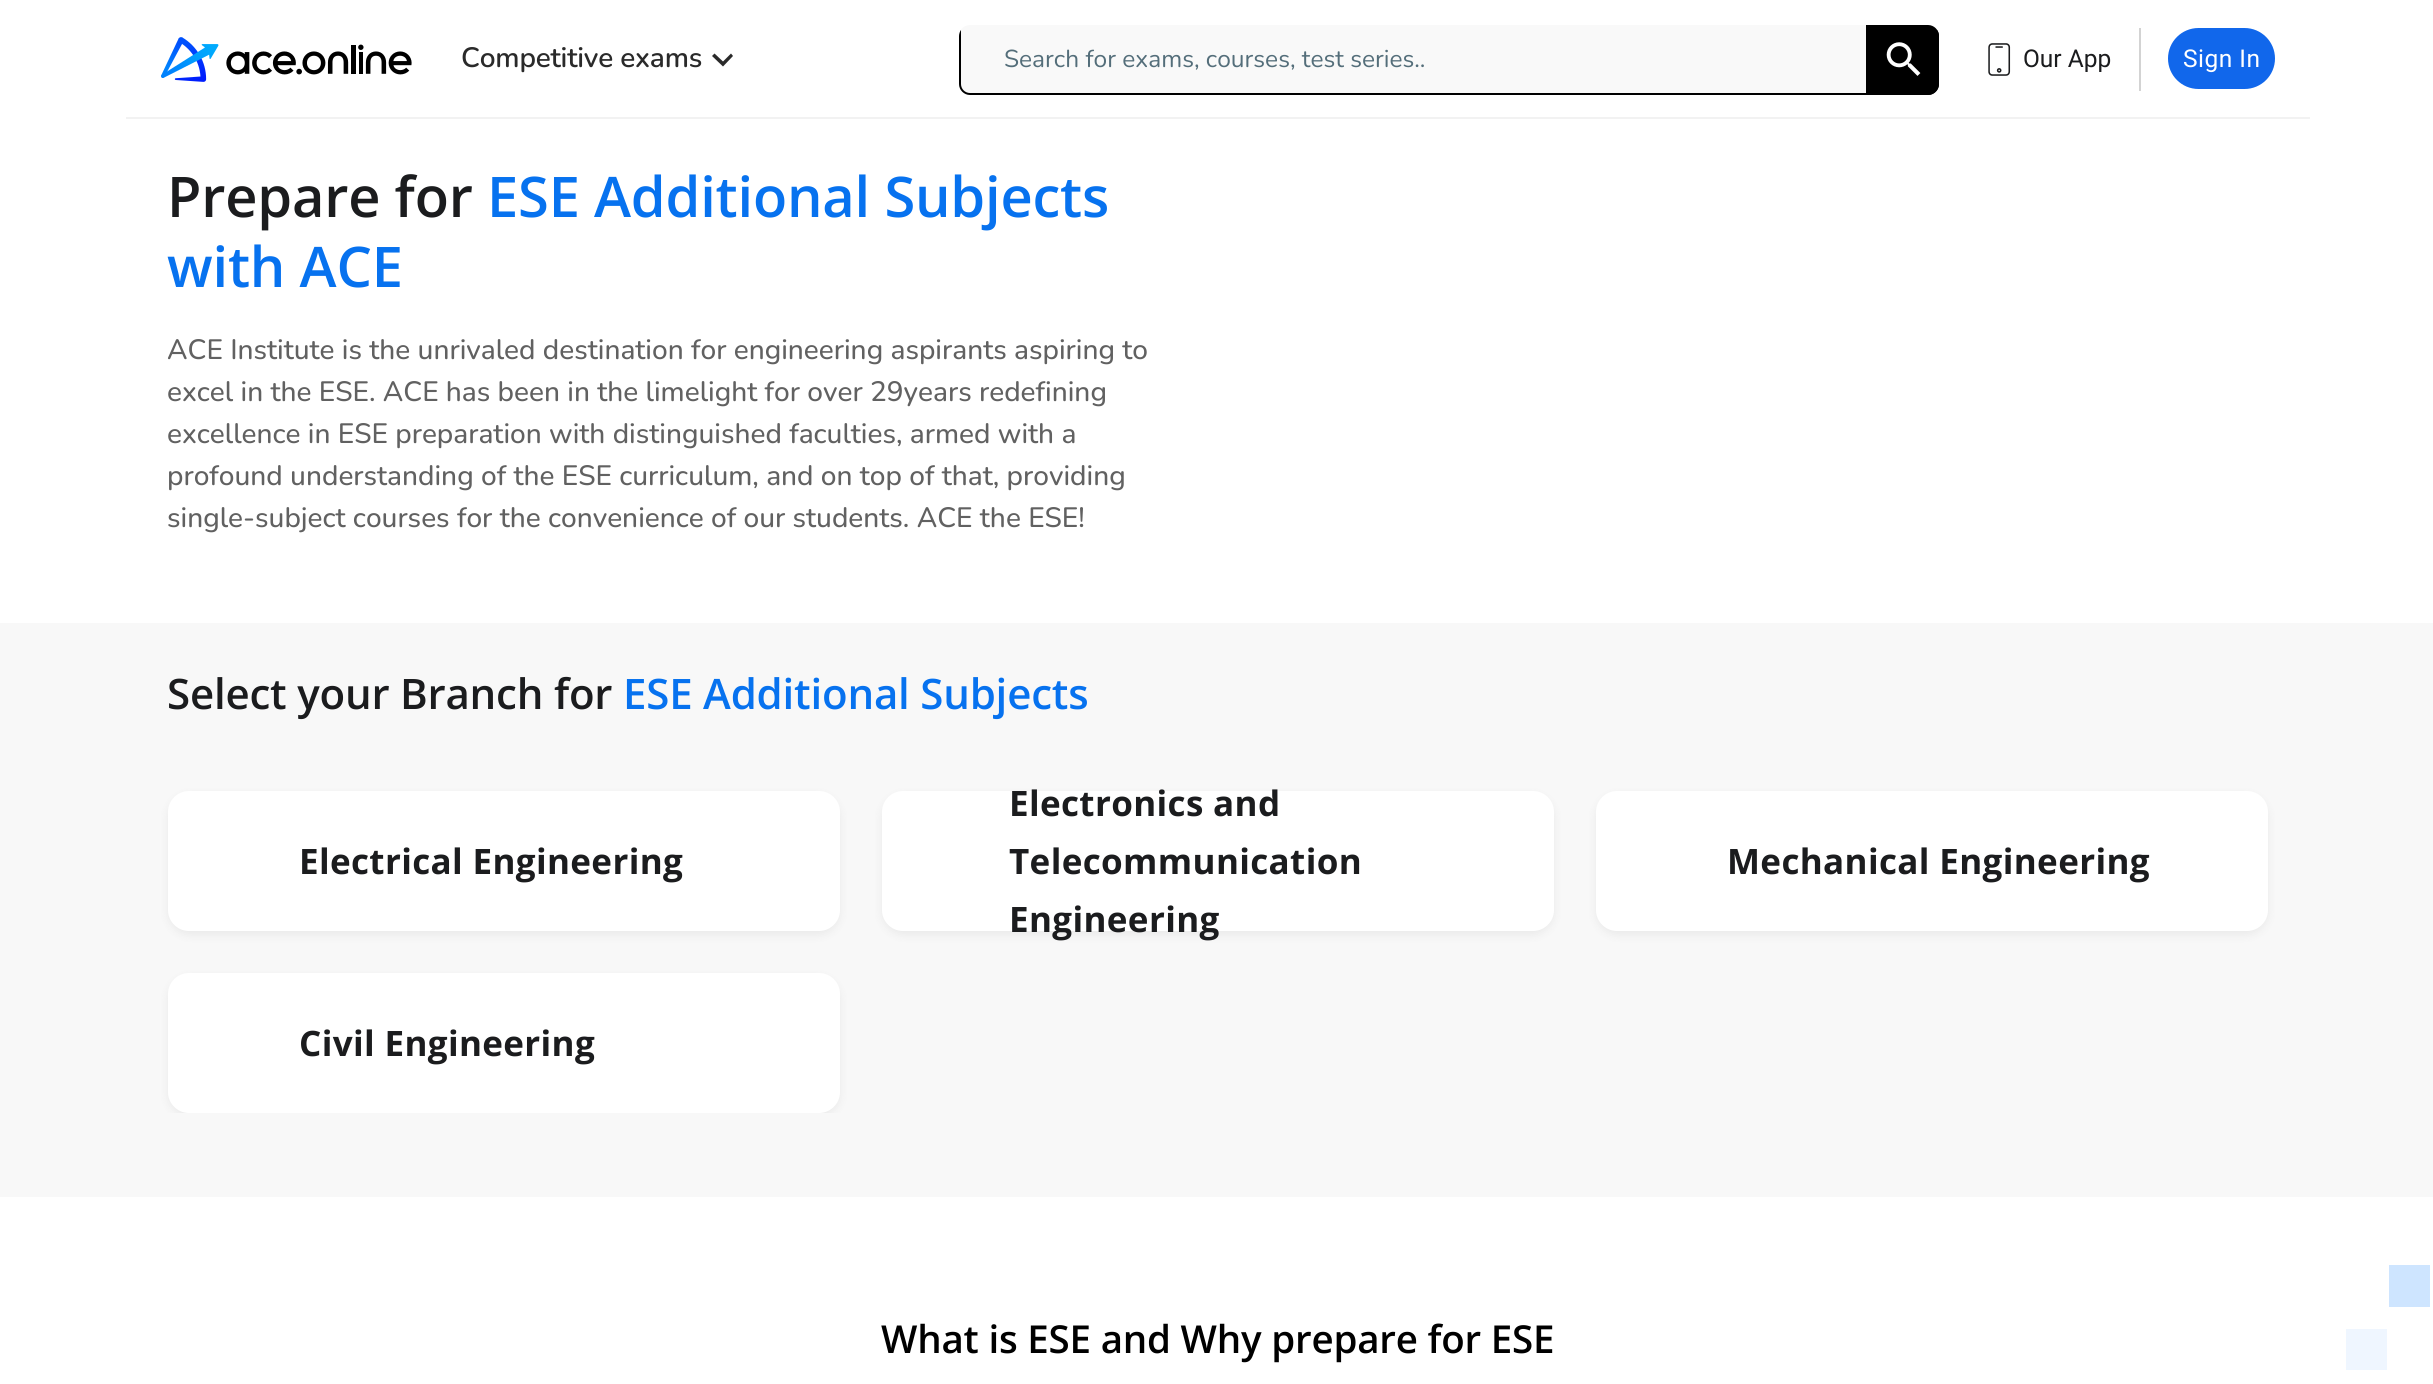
#include <cairo.h>
#include <math.h>
#include <stddef.h>


static void set_color(cairo_t *cr, unsigned color) {
    cairo_set_source_rgb(cr, (color >> 16) / 255.0, (color >> 8 & 255) / 255.0, (color & 255) / 255.0);
}

static void draw_text(cairo_t *cr, double x, double y, const char *s, const char *family, double size, int italic, int bold, unsigned color) {
    cairo_select_font_face(cr, family, italic ? CAIRO_FONT_SLANT_ITALIC : CAIRO_FONT_SLANT_NORMAL,
        bold ? CAIRO_FONT_WEIGHT_BOLD : CAIRO_FONT_WEIGHT_NORMAL);
    cairo_set_font_size(cr, size);
    set_color(cr, color);
    cairo_move_to(cr, x, y);
    cairo_show_text(cr, s);
}

static void draw_spaced(cairo_t *cr, double x, double y, const char *s, double letter, double word) {
    cairo_move_to(cr, x, y);
    while (*s) {
        char ch[5] = {0};
        int n = 0;
        do ch[n++] = *s++; while ((*s & 0xC0) == 0x80);
        cairo_show_text(cr, ch);
        cairo_rel_move_to(cr, letter + word * (*ch == ' '), 0);
    }
}

static void fill_rect(cairo_t *cr, double x, double y, double w, double h, unsigned color) {
    set_color(cr, color);
    cairo_rectangle(cr, x, y, w, h);
    cairo_fill(cr);
}

static void rounded_rect(cairo_t *cr, double x, double y, double w, double h, double r) {
    cairo_new_sub_path(cr);
    cairo_arc(cr, x + w - r, y + h - r, r, 0, M_PI / 2);
    cairo_arc(cr, x + r, y + h - r, r, M_PI / 2, M_PI);
    cairo_arc(cr, x + r, y + r, r, M_PI, 1.5 * M_PI);
    cairo_arc(cr, x + w - r, y + r, r, 1.5 * M_PI, 2 * M_PI);
    cairo_close_path(cr);
}

static void draw_shadow(cairo_t *cr, double x, double y, double w, double h, double r, double blur, double alpha) {
    cairo_push_group_with_content(cr, CAIRO_CONTENT_ALPHA);
    cairo_set_operator(cr, CAIRO_OPERATOR_SOURCE);
    for (int i = 15; i >= -15 && fmin(w, h) + blur * i / 3 > 0; i -= 2) {
        double e = blur * i / 6;
        cairo_set_source_rgba(cr, 0, 0, 0, alpha * erfc((i - 1) / 8.5) / 2);
        rounded_rect(cr, x - e, y - e, w + 2 * e, h + 2 * e, fmax(0, fmin(r + e + blur * .6, fmin(w, h) / 2 + e)));
        cairo_fill(cr);
    }
    cairo_pattern_t *soft = cairo_pop_group(cr);
    cairo_mask(cr, soft);
    cairo_pattern_destroy(soft);
}

static void draw_image(cairo_t *cr, const char *path, double x, double y, double w, double h) {
    cairo_surface_t *image = cairo_image_surface_create_from_png(path);
    cairo_save(cr);
    cairo_set_source_surface(cr, image, x, y);
    cairo_rectangle(cr, x, y, w, h);
    cairo_fill(cr);
    cairo_restore(cr);
    cairo_surface_destroy(image);
}

int main(void) {
    cairo_surface_t *surface = cairo_image_surface_create(CAIRO_FORMAT_RGB24, 2433, 1384);
    cairo_t *cr = cairo_create(surface);
    cairo_font_options_t *options = cairo_font_options_create();
    cairo_font_options_set_hint_metrics(options, CAIRO_HINT_METRICS_OFF);
    cairo_font_options_set_hint_style(options, CAIRO_HINT_STYLE_NONE);
    cairo_set_font_options(cr, options);
    cairo_set_miter_limit(cr, 4);
    set_color(cr, 0xFFFFFF);
    cairo_paint(cr);
    fill_rect(cr, 126, 117, 2184, 2, 0xF2F2F2);
    draw_image(cr, "assets/img1.png", 161, 37, 251, 45);
    cairo_select_font_face(cr, "Nunito SemiBold", CAIRO_FONT_SLANT_NORMAL, CAIRO_FONT_WEIGHT_NORMAL);
    cairo_set_font_size(cr, 28);
    set_color(cr, 0x2A2A2A);
    draw_spaced(cr, 461, 67, "Competitive exams", -0.2, 0);
    cairo_new_path(cr);
    cairo_move_to(cr, 731, 53.5);
    cairo_line_to(cr, 723, 61.5);
    cairo_line_to(cr, 714.5, 53.5);
    cairo_line_to(cr, 712, 56);
    cairo_line_to(cr, 723, 66.5);
    cairo_line_to(cr, 733, 56);
    cairo_close_path(cr);
    cairo_fill(cr);
    set_color(cr, 0xF9F9F9);
    rounded_rect(cr, 959, 25, 980, 70, 11);
    cairo_fill(cr);
    set_color(cr, 0x000000);
    cairo_new_path(cr);
    cairo_move_to(cr, 1866, 25);
    cairo_line_to(cr, 1928, 25);
    cairo_curve_to(cr, 1934, 25, 1939, 30, 1939, 36);
    cairo_line_to(cr, 1939, 84);
    cairo_curve_to(cr, 1939, 90, 1934, 95, 1928, 95);
    cairo_line_to(cr, 1866, 95);
    cairo_close_path(cr);
    cairo_fill(cr);
    draw_image(cr, "assets/img2.png", 1886, 42, 35, 34);
    draw_text(cr, 1004, 67, "Search for exams, courses, test series..", "Nunito", 24.5, 0, 0, 0x546E7A);
    set_color(cr, 0x000000);
    cairo_new_path(cr);
    cairo_move_to(cr, 959, 36);
    cairo_line_to(cr, 959, 84);
    cairo_curve_to(cr, 959, 90, 964, 95, 970, 95);
    cairo_line_to(cr, 1928, 95);
    cairo_curve_to(cr, 1934, 95, 1939, 90, 1939, 84);
    cairo_line_to(cr, 1939, 36);
    cairo_curve_to(cr, 1939, 34, 1938, 31, 1937, 30);
    cairo_line_to(cr, 1937, 84);
    cairo_curve_to(cr, 1937, 89, 1933, 93, 1928, 93);
    cairo_line_to(cr, 970, 93);
    cairo_curve_to(cr, 965, 93, 961, 89, 961, 84);
    cairo_line_to(cr, 961, 30);
    cairo_curve_to(cr, 960, 31, 959, 34, 959, 36);
    cairo_close_path(cr);
    cairo_fill(cr);
    fill_rect(cr, 2139, 28, 2, 63, 0xD3D3D3);
    draw_image(cr, "assets/img3.png", 1988, 43, 23, 33);
    draw_text(cr, 2023, 67, "Our App", "Roboto", 24.5, 0, 0, 0x1B1C1E);
    set_color(cr, 0x1167EB);
    rounded_rect(cr, 2168, 28, 107, 61, 30.5);
    cairo_fill(cr);
    set_color(cr, 0xFFFFFF);
    draw_spaced(cr, 2183, 67, "Sign In", 0.5, 0);
    cairo_select_font_face(cr, "Open Sans SemiBold", CAIRO_FONT_SLANT_NORMAL, CAIRO_FONT_WEIGHT_NORMAL);
    cairo_set_font_size(cr, 56);
    set_color(cr, 0x1B1C1E);
    draw_spaced(cr, 167, 217, "Prepare for", -0.2, 0);
    set_color(cr, 0x0772EF);
    draw_spaced(cr, 487, 217, "ESE Additional Subjects", -0.2, 0);
    draw_spaced(cr, 167, 287, "with ACE", -0.2, 0);
    draw_text(cr, 167, 359, "ACE Institute is the unrivaled destination for engineering aspirants aspiring to", "Nunito Medium", 28, 0, 0, 0x616161);
    draw_text(cr, 167, 401, "excel in the ESE. ACE has been in the limelight for over 29years redefining", "Nunito Medium", 28, 0, 0, 0x616161);
    draw_text(cr, 167, 443, "excellence in ESE preparation with distinguished faculties, armed with a", "Nunito Medium", 28, 0, 0, 0x616161);
    draw_text(cr, 167, 485, "profound understanding of the ESE curriculum, and on top of that, providing", "Nunito Medium", 28, 0, 0, 0x616161);
    draw_text(cr, 167, 527, "single-subject courses for the convenience of our students. ACE the ESE!", "Nunito Medium", 28, 0, 0, 0x616161);
    fill_rect(cr, 0, 623, 2433, 574, 0xF8F8F8);
    cairo_select_font_face(cr, "Open Sans SemiBold", CAIRO_FONT_SLANT_NORMAL, CAIRO_FONT_WEIGHT_NORMAL);
    cairo_set_font_size(cr, 42);
    set_color(cr, 0x1B1C1E);
    draw_spaced(cr, 167, 709, "Select your Branch for", -0.2, 0);
    set_color(cr, 0x0772EF);
    draw_spaced(cr, 623, 709, "ESE Additional Subjects", -0.2, 0);
    set_color(cr, 0x000000);
    draw_shadow(cr, 168, 795, 672, 140, 21, 5, 0.06);
    set_color(cr, 0xFFFFFF);
    rounded_rect(cr, 168, 791, 672, 140, 21);
    cairo_fill(cr);
    cairo_select_font_face(cr, "Open Sans", CAIRO_FONT_SLANT_NORMAL, CAIRO_FONT_WEIGHT_BOLD);
    cairo_set_font_size(cr, 35);
    set_color(cr, 0x1B1C1E);
    draw_spaced(cr, 299, 874, "Electrical Engineering", 0.35, 0);
    set_color(cr, 0x000000);
    draw_shadow(cr, 882, 795, 672, 140, 21, 5, 0.06);
    set_color(cr, 0xFFFFFF);
    rounded_rect(cr, 882, 791, 672, 140, 21);
    cairo_fill(cr);
    set_color(cr, 0x1B1C1E);
    draw_spaced(cr, 1009, 816, "Electronics and", 0.35, 0);
    draw_spaced(cr, 1009, 874, "Telecommunication", 0.35, 0);
    draw_spaced(cr, 1009, 932, "Engineering", 0.35, 0);
    set_color(cr, 0x000000);
    draw_shadow(cr, 1596, 795, 672, 140, 21, 5, 0.06);
    set_color(cr, 0xFFFFFF);
    rounded_rect(cr, 1596, 791, 672, 140, 21);
    cairo_fill(cr);
    set_color(cr, 0x1B1C1E);
    draw_spaced(cr, 1727, 874, "Mechanical Engineering", 0.35, 0);
    cairo_save(cr);
    cairo_rectangle(cr, 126, 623, 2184, 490);
    cairo_clip(cr);
    set_color(cr, 0x000000);
    draw_shadow(cr, 168, 977, 672, 140, 21, 5, 0.06);
    cairo_restore(cr);
    set_color(cr, 0xFFFFFF);
    rounded_rect(cr, 168, 973, 672, 140, 21);
    cairo_fill(cr);
    set_color(cr, 0x1B1C1E);
    draw_spaced(cr, 299, 1056, "Civil Engineering", 0.35, 0);
    fill_rect(cr, 2389, 1265, 41, 42, 0xCEE5FF);
    fill_rect(cr, 2346, 1329, 41, 41, 0xEFF6FF);
    cairo_select_font_face(cr, "Open Sans SemiBold", CAIRO_FONT_SLANT_NORMAL, CAIRO_FONT_WEIGHT_NORMAL);
    cairo_set_font_size(cr, 38.5);
    set_color(cr, 0x000000);
    draw_spaced(cr, 881, 1353, "What is ESE and Why prepare for ESE", -0.2, 0);
    cairo_surface_write_to_png(surface, "output.png");
    cairo_font_options_destroy(options);
    cairo_destroy(cr);
    cairo_surface_destroy(surface);
    return 0;
}
